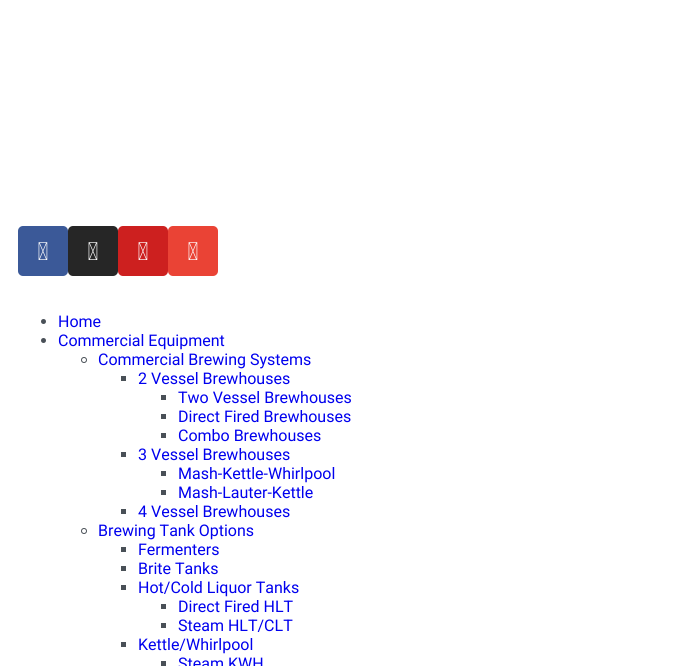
#include <cairo.h>
#include <math.h>
#include <stddef.h>


static void set_color(cairo_t *cr, unsigned color) {
    cairo_set_source_rgb(cr, (color >> 16) / 255.0, (color >> 8 & 255) / 255.0, (color & 255) / 255.0);
}

static void draw_text(cairo_t *cr, double x, double y, const char *s, const char *family, double size, int italic, int bold, unsigned color) {
    cairo_select_font_face(cr, family, italic ? CAIRO_FONT_SLANT_ITALIC : CAIRO_FONT_SLANT_NORMAL,
        bold ? CAIRO_FONT_WEIGHT_BOLD : CAIRO_FONT_WEIGHT_NORMAL);
    cairo_set_font_size(cr, size);
    set_color(cr, color);
    cairo_move_to(cr, x, y);
    cairo_show_text(cr, s);
}

static void fill_rect(cairo_t *cr, double x, double y, double w, double h, unsigned color) {
    set_color(cr, color);
    cairo_rectangle(cr, x, y, w, h);
    cairo_fill(cr);
}

static void rounded_rect(cairo_t *cr, double x, double y, double w, double h, double r) {
    cairo_new_sub_path(cr);
    cairo_arc(cr, x + w - r, y + h - r, r, 0, M_PI / 2);
    cairo_arc(cr, x + r, y + h - r, r, M_PI / 2, M_PI);
    cairo_arc(cr, x + r, y + r, r, M_PI, 1.5 * M_PI);
    cairo_arc(cr, x + w - r, y + r, r, 1.5 * M_PI, 2 * M_PI);
    cairo_close_path(cr);
}

static void draw_image(cairo_t *cr, const char *path, double x, double y, double w, double h) {
    cairo_surface_t *image = cairo_image_surface_create_from_png(path);
    cairo_save(cr);
    cairo_set_source_surface(cr, image, x, y);
    cairo_rectangle(cr, x, y, w, h);
    cairo_fill(cr);
    cairo_restore(cr);
    cairo_surface_destroy(image);
}

int main(void) {
    cairo_surface_t *surface = cairo_image_surface_create(CAIRO_FORMAT_RGB24, 698, 666);
    cairo_t *cr = cairo_create(surface);
    cairo_font_options_t *options = cairo_font_options_create();
    cairo_font_options_set_hint_metrics(options, CAIRO_HINT_METRICS_OFF);
    cairo_font_options_set_hint_style(options, CAIRO_HINT_STYLE_NONE);
    cairo_set_font_options(cr, options);
    cairo_set_miter_limit(cr, 4);
    set_color(cr, 0xFFFFFF);
    cairo_paint(cr);
    set_color(cr, 0x3B5998);
    rounded_rect(cr, 18, 226, 50, 50, 5);
    cairo_fill(cr);
    draw_image(cr, "assets/img1.png", 38, 242, 10, 18);
    set_color(cr, 0x262626);
    rounded_rect(cr, 68, 226, 50, 50, 5);
    cairo_fill(cr);
    draw_image(cr, "assets/img2.png", 88, 242, 10, 18);
    set_color(cr, 0xCD201F);
    rounded_rect(cr, 118, 226, 50, 50, 5);
    cairo_fill(cr);
    draw_image(cr, "assets/img3.png", 138, 242, 10, 18);
    set_color(cr, 0xEA4335);
    rounded_rect(cr, 168, 226, 50, 50, 5);
    cairo_fill(cr);
    draw_image(cr, "assets/img4.png", 188, 242, 10, 18);
    set_color(cr, 0x495057);
    cairo_arc(cr, 43.5, 321.5, 2.5, 0, 2 * M_PI);
    cairo_fill(cr);
    draw_text(cr, 58, 327, "Home", "Roboto", 16, 0, 0, 0x0000EE);
    set_color(cr, 0x495057);
    cairo_new_path(cr);
    cairo_arc(cr, 43.5, 340.5, 2.5, 0, 2 * M_PI);
    cairo_fill(cr);
    draw_text(cr, 58, 346, "Commercial Equipment", "Roboto", 16, 0, 0, 0x0000EE);
    cairo_new_path(cr);
    cairo_arc(cr, 84, 360, 2.5, 0, 2 * M_PI);
    set_color(cr, 0x495057);
    cairo_set_line_width(cr, 1);
    cairo_stroke(cr);
    draw_text(cr, 98, 365, "Commercial Brewing Systems", "Roboto", 16, 0, 0, 0x0000EE);
    fill_rect(cr, 121, 376, 5, 5, 0x495057);
    draw_text(cr, 138, 384, "2 Vessel Brewhouses", "Roboto", 16, 0, 0, 0x0000EE);
    fill_rect(cr, 161, 395, 5, 5, 0x495057);
    draw_text(cr, 178, 403, "Two Vessel Brewhouses", "Roboto", 16, 0, 0, 0x0000EE);
    fill_rect(cr, 161, 414, 5, 5, 0x495057);
    draw_text(cr, 178, 422, "Direct Fired Brewhouses", "Roboto", 16, 0, 0, 0x0000EE);
    fill_rect(cr, 161, 433, 5, 5, 0x495057);
    draw_text(cr, 178, 441, "Combo Brewhouses", "Roboto", 16, 0, 0, 0x0000EE);
    fill_rect(cr, 121, 452, 5, 5, 0x495057);
    draw_text(cr, 138, 460, "3 Vessel Brewhouses", "Roboto", 16, 0, 0, 0x0000EE);
    fill_rect(cr, 161, 471, 5, 5, 0x495057);
    draw_text(cr, 178, 479, "Mash-Kettle-Whirlpool", "Roboto", 16, 0, 0, 0x0000EE);
    fill_rect(cr, 161, 490, 5, 5, 0x495057);
    draw_text(cr, 178, 498, "Mash-Lauter-Kettle", "Roboto", 16, 0, 0, 0x0000EE);
    fill_rect(cr, 121, 509, 5, 5, 0x495057);
    draw_text(cr, 138, 517, "4 Vessel Brewhouses", "Roboto", 16, 0, 0, 0x0000EE);
    cairo_new_path(cr);
    cairo_arc(cr, 84, 531, 2.5, 0, 2 * M_PI);
    set_color(cr, 0x495057);
    cairo_stroke(cr);
    draw_text(cr, 98, 536, "Brewing Tank Options", "Roboto", 16, 0, 0, 0x0000EE);
    fill_rect(cr, 121, 547, 5, 5, 0x495057);
    draw_text(cr, 138, 555, "Fermenters", "Roboto", 16, 0, 0, 0x0000EE);
    fill_rect(cr, 121, 566, 5, 5, 0x495057);
    draw_text(cr, 138, 574, "Brite Tanks", "Roboto", 16, 0, 0, 0x0000EE);
    fill_rect(cr, 121, 585, 5, 5, 0x495057);
    draw_text(cr, 138, 593, "Hot/Cold Liquor Tanks", "Roboto", 16, 0, 0, 0x0000EE);
    fill_rect(cr, 161, 604, 5, 5, 0x495057);
    draw_text(cr, 178, 612, "Direct Fired HLT", "Roboto", 16, 0, 0, 0x0000EE);
    fill_rect(cr, 161, 623, 5, 5, 0x495057);
    draw_text(cr, 178, 631, "Steam HLT/CLT", "Roboto", 16, 0, 0, 0x0000EE);
    fill_rect(cr, 121, 642, 5, 5, 0x495057);
    draw_text(cr, 138, 650, "Kettle/Whirlpool", "Roboto", 16, 0, 0, 0x0000EE);
    fill_rect(cr, 161, 661, 5, 5, 0x495057);
    draw_text(cr, 178, 669, "Steam KWH", "Roboto", 16, 0, 0, 0x0000EE);
    cairo_surface_write_to_png(surface, "output.png");
    cairo_font_options_destroy(options);
    cairo_destroy(cr);
    cairo_surface_destroy(surface);
    return 0;
}
